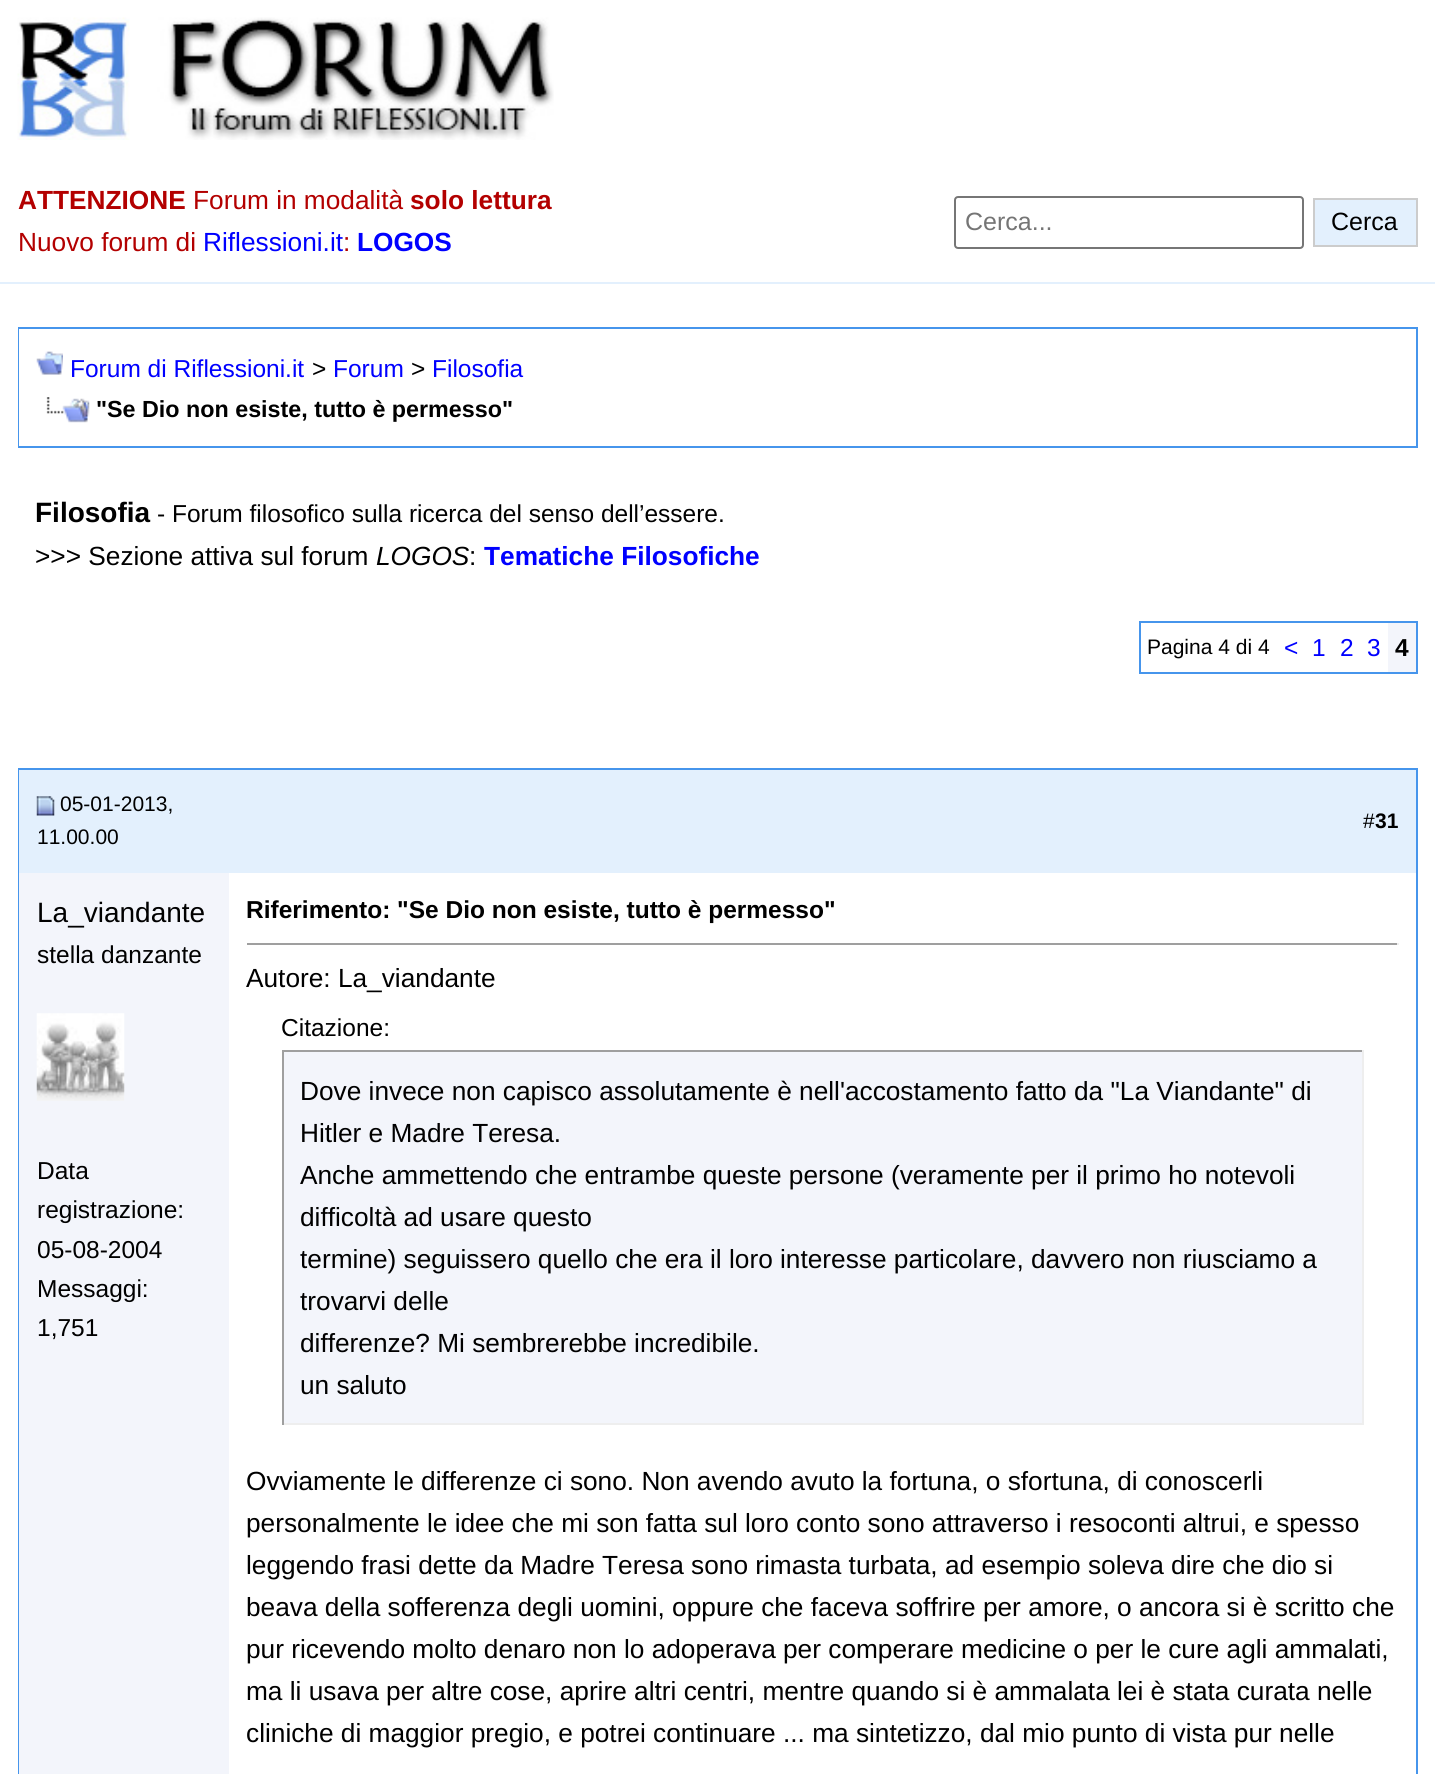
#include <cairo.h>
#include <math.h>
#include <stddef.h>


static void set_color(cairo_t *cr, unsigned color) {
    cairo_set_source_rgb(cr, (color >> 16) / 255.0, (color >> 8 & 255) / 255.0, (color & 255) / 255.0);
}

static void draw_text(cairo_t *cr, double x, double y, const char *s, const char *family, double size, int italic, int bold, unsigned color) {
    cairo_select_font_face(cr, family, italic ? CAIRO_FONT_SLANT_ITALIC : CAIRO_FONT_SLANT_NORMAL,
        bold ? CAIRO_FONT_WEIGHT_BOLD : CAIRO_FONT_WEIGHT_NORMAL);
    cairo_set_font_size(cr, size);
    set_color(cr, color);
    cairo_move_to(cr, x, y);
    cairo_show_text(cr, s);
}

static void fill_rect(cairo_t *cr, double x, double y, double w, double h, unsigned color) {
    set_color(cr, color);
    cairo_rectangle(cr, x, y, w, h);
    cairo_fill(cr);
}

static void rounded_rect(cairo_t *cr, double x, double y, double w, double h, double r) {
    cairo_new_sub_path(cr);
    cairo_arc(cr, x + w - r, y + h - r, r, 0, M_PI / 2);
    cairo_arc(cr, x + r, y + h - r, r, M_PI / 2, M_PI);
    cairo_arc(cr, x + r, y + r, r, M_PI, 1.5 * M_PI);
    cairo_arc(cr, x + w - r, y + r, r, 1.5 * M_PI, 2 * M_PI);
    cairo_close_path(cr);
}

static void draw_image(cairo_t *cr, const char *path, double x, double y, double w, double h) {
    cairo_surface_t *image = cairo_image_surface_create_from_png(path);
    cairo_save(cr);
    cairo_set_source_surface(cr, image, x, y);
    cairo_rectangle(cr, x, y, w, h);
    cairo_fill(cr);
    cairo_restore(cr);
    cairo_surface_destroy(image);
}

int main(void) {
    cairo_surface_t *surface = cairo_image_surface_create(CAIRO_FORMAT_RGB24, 1435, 1774);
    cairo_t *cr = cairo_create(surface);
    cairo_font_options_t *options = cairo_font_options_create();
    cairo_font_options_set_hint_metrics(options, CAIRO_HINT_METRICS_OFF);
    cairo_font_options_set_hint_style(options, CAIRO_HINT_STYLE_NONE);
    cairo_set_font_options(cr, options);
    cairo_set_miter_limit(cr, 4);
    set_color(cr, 0xFFFFFF);
    cairo_paint(cr);
    fill_rect(cr, 0, 282, 1435, 2, 0xE3F0FD);
    draw_image(cr, "assets/img1.png", 17, 17, 537, 123);
    draw_text(cr, 18, 209, "ATTENZIONE", "Liberation Sans", 26.25, 0, 1, 0xB30000);
    draw_text(cr, 193, 209, "Forum in modalità", "Liberation Sans", 26.25, 0, 0, 0xB30000);
    draw_text(cr, 410, 209, "solo lettura", "Liberation Sans", 26.25, 0, 1, 0xB30000);
    draw_text(cr, 18, 251, "Nuovo forum di", "Liberation Sans", 26.25, 0, 0, 0xB30000);
    draw_text(cr, 203, 251, "Riflessioni.it", "Liberation Sans", 26.25, 0, 0, 0x0000FF);
    draw_text(cr, 343, 251, ":", "Liberation Sans", 26.25, 0, 0, 0xB30000);
    draw_text(cr, 357, 251, "LOGOS", "Liberation Sans", 26.25, 0, 1, 0x0000FF);
    rounded_rect(cr, 955, 197, 348, 51, 3);
    set_color(cr, 0x767676);
    cairo_stroke(cr);
    draw_text(cr, 965, 230, "Cerca...", "Liberation Sans", 25, 0, 0, 0x757575);
    set_color(cr, 0xE3F0FD);
    cairo_rectangle(cr, 1314, 199, 103, 47);
    cairo_fill_preserve(cr);
    set_color(cr, 0xCCCCCC);
    cairo_stroke(cr);
    draw_text(cr, 1331, 230, "Cerca", "Liberation Sans", 25, 0, 0, 0x000000);
    cairo_rectangle(cr, 19, 328, 1398, 119);
    set_color(cr, 0x4695EC);
    cairo_stroke(cr);
    fill_rect(cr, 19, 329, 1, 117, 0xFFFFFF);
    draw_image(cr, "assets/img2.png", 36, 351, 27, 24);
    draw_text(cr, 70, 377, "Forum di Riflessioni.it", "Liberation Sans", 24.5, 0, 0, 0x0000FF);
    draw_text(cr, 312, 377, ">", "Liberation Sans", 24.5, 0, 0, 0x000000);
    draw_text(cr, 333, 377, "Forum", "Liberation Sans", 24.5, 0, 0, 0x0000FF);
    draw_text(cr, 411, 377, ">", "Liberation Sans", 24.5, 0, 0, 0x000000);
    draw_text(cr, 432, 377, "Filosofia", "Liberation Sans", 24.5, 0, 0, 0x0000FF);
    draw_image(cr, "assets/img3.png", 46, 397, 44, 26);
    draw_text(cr, 96, 417, "\"Se Dio non esiste, tutto è permesso\"", "Liberation Sans", 23.3, 0, 1, 0x000000);
    draw_text(cr, 35, 522, "Filosofia", "Liberation Sans", 28, 0, 1, 0x000000);
    draw_text(cr, 157, 522, "- Forum filosofico sulla ricerca del senso dell’essere.", "Liberation Sans", 24.5, 0, 0, 0x000000);
    draw_text(cr, 35, 565, ">>> Sezione attiva sul forum", "Liberation Sans", 26.25, 0, 0, 0x000000);
    draw_text(cr, 376, 565, "LOGOS", "Liberation Sans", 26.25, 1, 0, 0x000000);
    draw_text(cr, 469, 565, ":", "Liberation Sans", 26.25, 0, 0, 0x000000);
    draw_text(cr, 484, 565, "Tematiche Filosofiche", "Liberation Sans", 26.25, 0, 1, 0x0000FF);
    cairo_rectangle(cr, 1140, 622, 277, 51);
    set_color(cr, 0x4695EC);
    cairo_stroke(cr);
    draw_text(cr, 1147, 654, "Pagina 4 di 4", "Liberation Sans", 21, 0, 0, 0x000000);
    draw_text(cr, 1284, 656, "<", "Liberation Sans", 24.5, 0, 0, 0x0000FF);
    draw_text(cr, 1312, 656, "1", "Liberation Sans", 24.5, 0, 0, 0x0000FF);
    draw_text(cr, 1340, 656, "2", "Liberation Sans", 24.5, 0, 0, 0x0000FF);
    draw_text(cr, 1367, 656, "3", "Liberation Sans", 24.5, 0, 0, 0x0000FF);
    fill_rect(cr, 1388, 623, 28, 49, 0xF3F5FB);
    draw_text(cr, 1395, 656, "4", "Liberation Sans", 24.5, 0, 1, 0x000000);
    cairo_rectangle(cr, 19, 769, 1398, 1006);
    set_color(cr, 0x4695EC);
    cairo_stroke(cr);
    fill_rect(cr, 19, 770, 1397, 103, 0xE3F0FD);
    draw_image(cr, "assets/img4.png", 36, 796, 19, 20);
    draw_text(cr, 60, 811, "05-01-2013,", "Liberation Sans", 21, 0, 0, 0x000000);
    draw_text(cr, 37, 844, "11.00.00", "Liberation Sans", 21, 0, 0, 0x000000);
    draw_text(cr, 1363, 828, "#", "Liberation Sans", 21, 0, 0, 0x000000);
    draw_text(cr, 1375, 828, "31", "Liberation Sans", 21, 0, 1, 0x000000);
    fill_rect(cr, 19, 873, 210, 901, 0xF3F5FB);
    draw_text(cr, 37, 922, "La_viandante", "Liberation Sans", 28, 0, 0, 0x000000);
    draw_text(cr, 37, 963, "stella danzante", "Liberation Sans", 24.5, 0, 0, 0x000000);
    draw_image(cr, "assets/img5.png", 36, 1013, 89, 88);
    draw_text(cr, 37, 1179, "Data", "Liberation Sans", 24.5, 0, 0, 0x000000);
    draw_text(cr, 37, 1218, "registrazione:", "Liberation Sans", 24.5, 0, 0, 0x000000);
    draw_text(cr, 37, 1258, "05-08-2004", "Liberation Sans", 24.5, 0, 0, 0x000000);
    draw_text(cr, 37, 1297, "Messaggi:", "Liberation Sans", 24.5, 0, 0, 0x000000);
    draw_text(cr, 37, 1336, "1,751", "Liberation Sans", 24.5, 0, 0, 0x000000);
    draw_text(cr, 246, 918, "Riferimento: \"Se Dio non esiste, tutto è permesso\"", "Liberation Sans", 24.5, 0, 1, 0x000000);
    fill_rect(cr, 247, 943, 1151, 2, 0x9F9F9F);
    fill_rect(cr, 1397, 943, 2, 2, 0xEEEEEE);
    draw_text(cr, 246, 987, "Autore: La_viandante", "Liberation Sans", 26.25, 0, 0, 0x000000);
    draw_text(cr, 281, 1036, "Citazione:", "Liberation Sans", 24.5, 0, 0, 0x000000);
    fill_rect(cr, 284, 1052, 1078, 371, 0xF3F5FB);
    fill_rect(cr, 282, 1050, 1081, 2, 0x9F9F9F);
    fill_rect(cr, 1362, 1050, 2, 375, 0xEEEEEE);
    fill_rect(cr, 282, 1423, 1081, 2, 0xEEEEEE);
    fill_rect(cr, 282, 1050, 2, 375, 0x9F9F9F);
    draw_text(cr, 300, 1100, "Dove invece non capisco assolutamente è nell'accostamento fatto da \"La Viandante\" di", "Liberation Sans", 26.25, 0, 0, 0x000000);
    draw_text(cr, 300, 1142, "Hitler e Madre Teresa.", "Liberation Sans", 26.25, 0, 0, 0x000000);
    draw_text(cr, 300, 1184, "Anche ammettendo che entrambe queste persone (veramente per il primo ho notevoli", "Liberation Sans", 26.25, 0, 0, 0x000000);
    draw_text(cr, 300, 1226, "difficoltà ad usare questo", "Liberation Sans", 26.25, 0, 0, 0x000000);
    draw_text(cr, 300, 1268, "termine) seguissero quello che era il loro interesse particolare, davvero non riusciamo a", "Liberation Sans", 26.25, 0, 0, 0x000000);
    draw_text(cr, 300, 1310, "trovarvi delle", "Liberation Sans", 26.25, 0, 0, 0x000000);
    draw_text(cr, 300, 1352, "differenze? Mi sembrerebbe incredibile.", "Liberation Sans", 26.25, 0, 0, 0x000000);
    draw_text(cr, 300, 1394, "un saluto", "Liberation Sans", 26.25, 0, 0, 0x000000);
    draw_text(cr, 246, 1490, "Ovviamente le differenze ci sono. Non avendo avuto la fortuna, o sfortuna, di conoscerli", "Liberation Sans", 26.25, 0, 0, 0x000000);
    draw_text(cr, 246, 1532, "personalmente le idee che mi son fatta sul loro conto sono attraverso i resoconti altrui, e spesso", "Liberation Sans", 26.25, 0, 0, 0x000000);
    draw_text(cr, 246, 1574, "leggendo frasi dette da Madre Teresa sono rimasta turbata, ad esempio soleva dire che dio si", "Liberation Sans", 26.25, 0, 0, 0x000000);
    draw_text(cr, 246, 1616, "beava della sofferenza degli uomini, oppure che faceva soffrire per amore, o ancora si è scritto che", "Liberation Sans", 26.25, 0, 0, 0x000000);
    draw_text(cr, 246, 1658, "pur ricevendo molto denaro non lo adoperava per comperare medicine o per le cure agli ammalati,", "Liberation Sans", 26.25, 0, 0, 0x000000);
    draw_text(cr, 246, 1700, "ma li usava per altre cose, aprire altri centri, mentre quando si è ammalata lei è stata curata nelle", "Liberation Sans", 26.25, 0, 0, 0x000000);
    draw_text(cr, 246, 1742, "cliniche di maggior pregio, e potrei continuare ... ma sintetizzo, dal mio punto di vista pur nelle", "Liberation Sans", 26.25, 0, 0, 0x000000);
    cairo_surface_write_to_png(surface, "output.png");
    cairo_font_options_destroy(options);
    cairo_destroy(cr);
    cairo_surface_destroy(surface);
    return 0;
}
